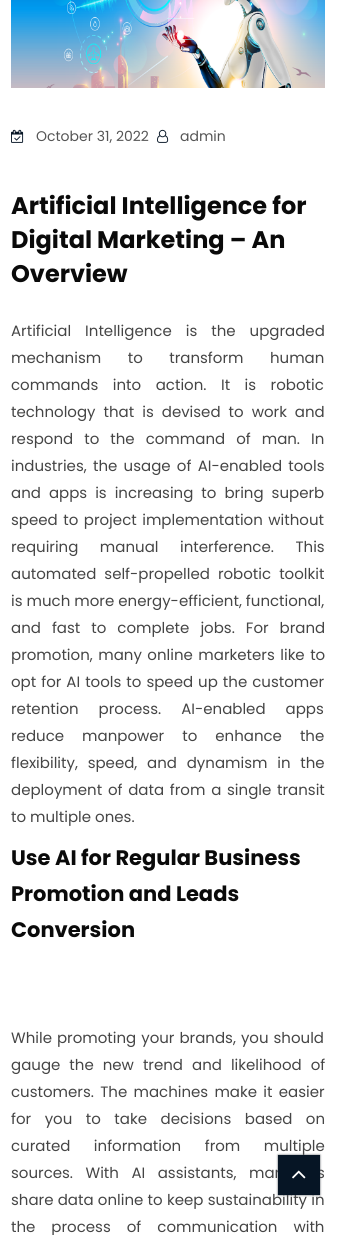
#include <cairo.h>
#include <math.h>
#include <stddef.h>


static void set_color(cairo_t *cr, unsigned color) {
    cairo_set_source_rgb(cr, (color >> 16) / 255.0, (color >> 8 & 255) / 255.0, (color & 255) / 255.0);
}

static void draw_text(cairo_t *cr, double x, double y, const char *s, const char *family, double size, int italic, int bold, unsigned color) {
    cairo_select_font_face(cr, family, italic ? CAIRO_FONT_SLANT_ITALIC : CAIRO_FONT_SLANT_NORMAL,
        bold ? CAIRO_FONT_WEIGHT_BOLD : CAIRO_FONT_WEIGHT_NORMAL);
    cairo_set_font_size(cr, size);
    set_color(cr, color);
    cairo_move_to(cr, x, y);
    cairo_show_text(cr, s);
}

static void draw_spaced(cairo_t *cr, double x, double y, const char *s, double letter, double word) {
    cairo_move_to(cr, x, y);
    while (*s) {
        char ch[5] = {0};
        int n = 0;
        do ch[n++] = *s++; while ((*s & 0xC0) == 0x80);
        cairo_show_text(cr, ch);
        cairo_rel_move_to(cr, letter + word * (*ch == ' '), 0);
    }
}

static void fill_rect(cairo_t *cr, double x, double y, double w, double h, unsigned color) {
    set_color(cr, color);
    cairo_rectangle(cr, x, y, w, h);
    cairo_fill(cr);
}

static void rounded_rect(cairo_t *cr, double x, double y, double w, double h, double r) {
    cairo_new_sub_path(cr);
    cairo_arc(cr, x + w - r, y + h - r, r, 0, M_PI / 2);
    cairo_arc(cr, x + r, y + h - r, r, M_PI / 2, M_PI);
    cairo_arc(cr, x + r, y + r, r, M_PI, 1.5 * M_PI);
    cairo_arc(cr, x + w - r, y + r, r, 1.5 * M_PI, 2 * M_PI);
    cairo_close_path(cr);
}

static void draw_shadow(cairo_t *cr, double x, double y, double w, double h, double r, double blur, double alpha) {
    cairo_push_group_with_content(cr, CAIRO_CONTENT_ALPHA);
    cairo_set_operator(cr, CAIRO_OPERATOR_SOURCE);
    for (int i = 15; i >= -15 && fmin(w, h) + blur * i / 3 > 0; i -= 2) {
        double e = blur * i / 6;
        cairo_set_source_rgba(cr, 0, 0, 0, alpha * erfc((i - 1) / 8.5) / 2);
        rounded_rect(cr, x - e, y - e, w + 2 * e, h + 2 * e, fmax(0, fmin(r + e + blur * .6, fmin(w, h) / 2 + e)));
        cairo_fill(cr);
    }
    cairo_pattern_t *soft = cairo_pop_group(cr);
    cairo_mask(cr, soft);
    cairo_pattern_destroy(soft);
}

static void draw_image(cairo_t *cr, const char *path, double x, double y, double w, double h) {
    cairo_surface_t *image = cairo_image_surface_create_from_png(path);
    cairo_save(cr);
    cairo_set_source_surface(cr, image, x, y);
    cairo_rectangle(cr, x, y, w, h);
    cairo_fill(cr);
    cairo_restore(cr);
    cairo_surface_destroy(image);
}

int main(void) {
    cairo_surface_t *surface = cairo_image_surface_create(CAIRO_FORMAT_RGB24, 340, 1235);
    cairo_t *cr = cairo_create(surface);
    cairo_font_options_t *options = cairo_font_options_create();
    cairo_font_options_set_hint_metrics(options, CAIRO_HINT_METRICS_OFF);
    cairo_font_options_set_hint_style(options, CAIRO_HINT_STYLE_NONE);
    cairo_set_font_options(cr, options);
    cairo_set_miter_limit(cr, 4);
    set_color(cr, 0xFFFFFF);
    cairo_paint(cr);
    draw_image(cr, "assets/img1.png", 11, 0, 314, 88);
    draw_image(cr, "assets/img2.png", 11, 129, 13, 14);
    draw_text(cr, 36, 141, "October 31, 2022", "Poppins", 14, 0, 0, 0x555555);
    draw_image(cr, "assets/img3.png", 157, 129, 12, 14);
    draw_text(cr, 180, 141, "admin", "Poppins", 14, 0, 0, 0x555555);
    draw_text(cr, 11, 214, "Artificial Intelligence for", "Poppins", 24, 0, 1, 0x0A0A0A);
    draw_text(cr, 11, 248, "Digital Marketing – An", "Poppins", 24, 0, 1, 0x0A0A0A);
    draw_text(cr, 11, 282, "Overview", "Poppins", 24, 0, 1, 0x0A0A0A);
    cairo_select_font_face(cr, "Poppins", CAIRO_FONT_SLANT_NORMAL, CAIRO_FONT_WEIGHT_NORMAL);
    cairo_set_font_size(cr, 15);
    set_color(cr, 0x454545);
    draw_spaced(cr, 11, 336, "Artificial Intelligence is the upgraded", 0, 10);
    draw_spaced(cr, 11, 363, "mechanism to transform human", 0, 22.5);
    draw_spaced(cr, 11, 390, "commands into action. It is robotic", 0, 10.5);
    draw_spaced(cr, 11, 417, "technology that is devised to work and", 0, 4);
    draw_spaced(cr, 11, 444, "respond to the command of man. In", 0, 7);
    draw_spaced(cr, 11, 471, "industries, the usage of AI-enabled tools", 0, 2.25);
    draw_spaced(cr, 11, 498, "and apps is increasing to bring superb", 0, 4);
    draw_spaced(cr, 11, 525, "speed to project implementation without", 0, 1.5);
    draw_spaced(cr, 11, 552, "requiring manual interference. This", 0, 17.5);
    draw_spaced(cr, 11, 579, "automated self-propelled robotic toolkit", 0, 4);
    draw_text(cr, 11, 606, "is much more energy-efficient, functional,", "Poppins", 15, 0, 0, 0x454545);
    draw_spaced(cr, 11, 633, "and fast to complete jobs. For brand", 0, 7);
    draw_spaced(cr, 11, 660, "promotion, many online marketers like to", 0, 1.5);
    draw_spaced(cr, 11, 687, "opt for AI tools to speed up the customer", 0, 1);
    draw_spaced(cr, 11, 714, "retention process. AI-enabled apps", 0, 16);
    draw_spaced(cr, 11, 741, "reduce manpower to enhance the", 0, 14);
    draw_spaced(cr, 11, 768, "flexibility, speed, and dynamism in the", 0, 5.75);
    draw_spaced(cr, 11, 795, "deployment of data from a single transit", 0, 1.75);
    draw_text(cr, 11, 822, "to multiple ones.", "Poppins", 15, 0, 0, 0x454545);
    draw_text(cr, 11, 865, "Use AI for Regular Business", "Poppins", 21, 0, 1, 0x0A0A0A);
    draw_text(cr, 11, 901, "Promotion and Leads", "Poppins", 21, 0, 1, 0x0A0A0A);
    draw_text(cr, 11, 937, "Conversion", "Poppins", 21, 0, 1, 0x0A0A0A);
    cairo_select_font_face(cr, "Poppins", CAIRO_FONT_SLANT_NORMAL, CAIRO_FONT_WEIGHT_NORMAL);
    cairo_set_font_size(cr, 15);
    set_color(cr, 0x454545);
    draw_spaced(cr, 11, 1043, "While promoting your brands, you should", 0, 1);
    draw_spaced(cr, 11, 1070, "gauge the new trend and likelihood of", 0, 5);
    draw_spaced(cr, 11, 1097, "customers. The machines make it easier", 0, 2.25);
    draw_spaced(cr, 11, 1124, "for you to take decisions based on", 0, 9.5);
    draw_spaced(cr, 11, 1151, "curated information from multiple", 0, 19.5);
    draw_spaced(cr, 11, 1178, "sources. With AI assistants, mar", 0, 8.5);
    draw_spaced(cr, 317, 1178, "s", 0, 8.5);
    draw_spaced(cr, 11, 1205, "share data online to keep sustainability in", 0, 0.25);
    draw_spaced(cr, 11, 1232, "the process of communication with", 0, 12);
    set_color(cr, 0x54595F);
    draw_shadow(cr, 278, 1155, 42, 40, 0, 1, 1);
    fill_rect(cr, 278, 1155, 42, 40, 0x061525);
    draw_image(cr, "assets/img4.png", 292, 1170, 14, 9);
    cairo_surface_write_to_png(surface, "output.png");
    cairo_font_options_destroy(options);
    cairo_destroy(cr);
    cairo_surface_destroy(surface);
    return 0;
}
